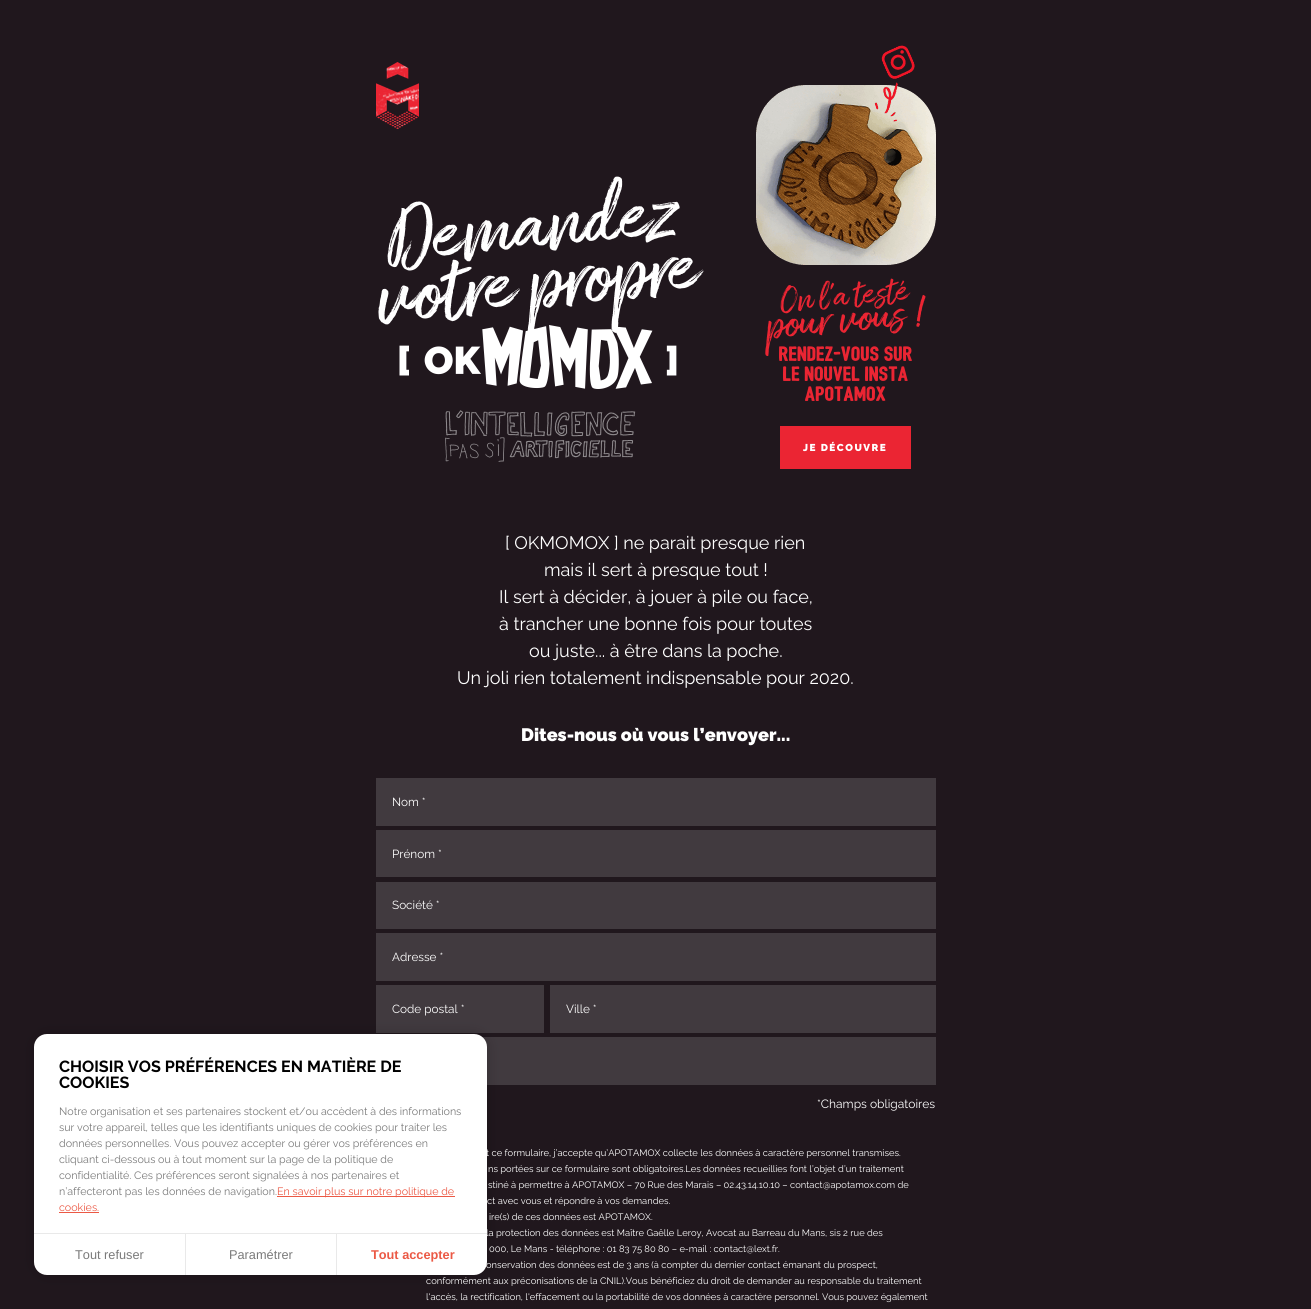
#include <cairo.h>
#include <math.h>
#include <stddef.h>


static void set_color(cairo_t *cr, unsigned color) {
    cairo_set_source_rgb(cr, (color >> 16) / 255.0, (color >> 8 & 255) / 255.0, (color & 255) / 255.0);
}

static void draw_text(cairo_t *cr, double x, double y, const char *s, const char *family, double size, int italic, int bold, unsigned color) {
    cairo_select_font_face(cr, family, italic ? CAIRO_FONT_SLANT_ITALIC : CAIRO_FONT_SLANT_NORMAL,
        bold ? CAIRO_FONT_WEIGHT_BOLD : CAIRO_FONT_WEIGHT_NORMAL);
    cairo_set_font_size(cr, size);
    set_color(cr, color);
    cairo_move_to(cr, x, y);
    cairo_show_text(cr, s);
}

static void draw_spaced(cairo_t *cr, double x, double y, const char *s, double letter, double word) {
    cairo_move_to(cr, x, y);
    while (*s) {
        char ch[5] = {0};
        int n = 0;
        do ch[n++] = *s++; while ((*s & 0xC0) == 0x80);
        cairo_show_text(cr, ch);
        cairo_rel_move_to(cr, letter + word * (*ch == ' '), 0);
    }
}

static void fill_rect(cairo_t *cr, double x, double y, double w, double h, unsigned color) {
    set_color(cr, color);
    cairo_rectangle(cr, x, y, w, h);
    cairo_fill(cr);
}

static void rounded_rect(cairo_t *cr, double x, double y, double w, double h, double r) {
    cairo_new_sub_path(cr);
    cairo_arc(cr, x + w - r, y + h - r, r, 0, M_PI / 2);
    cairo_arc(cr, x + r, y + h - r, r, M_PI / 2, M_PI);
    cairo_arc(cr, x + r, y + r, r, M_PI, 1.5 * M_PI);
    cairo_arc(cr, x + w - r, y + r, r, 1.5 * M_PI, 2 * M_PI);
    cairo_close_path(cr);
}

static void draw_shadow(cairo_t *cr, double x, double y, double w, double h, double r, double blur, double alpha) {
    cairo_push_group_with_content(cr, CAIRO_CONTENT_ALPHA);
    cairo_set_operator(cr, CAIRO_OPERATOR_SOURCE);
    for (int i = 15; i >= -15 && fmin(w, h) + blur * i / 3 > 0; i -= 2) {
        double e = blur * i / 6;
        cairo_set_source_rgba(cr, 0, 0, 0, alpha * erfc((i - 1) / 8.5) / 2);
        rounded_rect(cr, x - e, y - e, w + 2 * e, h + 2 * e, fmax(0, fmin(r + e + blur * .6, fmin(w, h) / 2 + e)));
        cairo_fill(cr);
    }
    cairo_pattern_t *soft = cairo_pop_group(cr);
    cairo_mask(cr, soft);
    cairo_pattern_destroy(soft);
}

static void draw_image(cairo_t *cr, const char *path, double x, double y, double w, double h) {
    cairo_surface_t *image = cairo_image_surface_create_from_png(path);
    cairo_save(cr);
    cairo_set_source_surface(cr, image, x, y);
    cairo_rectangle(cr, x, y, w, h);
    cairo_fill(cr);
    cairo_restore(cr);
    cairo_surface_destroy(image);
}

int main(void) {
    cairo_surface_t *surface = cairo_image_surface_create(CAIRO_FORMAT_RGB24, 1311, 1309);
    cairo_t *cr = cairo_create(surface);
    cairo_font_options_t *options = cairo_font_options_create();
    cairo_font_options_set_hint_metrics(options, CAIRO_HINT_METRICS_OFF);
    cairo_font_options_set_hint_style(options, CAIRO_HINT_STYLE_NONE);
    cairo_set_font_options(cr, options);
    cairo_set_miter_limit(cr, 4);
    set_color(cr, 0x20171D);
    cairo_paint(cr);
    fill_rect(cr, 376, 985, 168, 48, 0x413A3F);
    fill_rect(cr, 482, 1037, 454, 48, 0x413A3F);
    set_color(cr, 0x000000);
    draw_shadow(cr, 34, 1034, 453, 241, 13, 6.5, 0.2);
    set_color(cr, 0xFFFFFF);
    rounded_rect(cr, 34, 1034, 453, 241, 13);
    cairo_fill(cr);
    draw_text(cr, 59, 1072, "CHOISIR VOS PRÉFÉRENCES EN MATIÈRE DE", "Raleway", 16.1, 0, 1, 0x000000);
    draw_text(cr, 59, 1088, "COOKIES", "Raleway", 16.1, 0, 1, 0x000000);
    draw_text(cr, 59, 1115, "Notre organisation et ses partenaires stockent et/ou accèdent à des informations", "Raleway", 10.7, 0, 0, 0x7A7A7A);
    draw_text(cr, 59, 1131, "sur votre appareil, telles que les identifiants uniques de cookies pour traiter les", "Raleway", 10.7, 0, 0, 0x7A7A7A);
    draw_text(cr, 59, 1147, "données personnelles. Vous pouvez accepter ou gérer vos préférences en", "Raleway", 10.7, 0, 0, 0x7A7A7A);
    draw_text(cr, 59, 1163, "cliquant ci-dessous ou à tout moment sur la page de la politique de", "Raleway", 10.7, 0, 0, 0x7A7A7A);
    draw_text(cr, 59, 1179, "confidentialité. Ces préférences seront signalées à nos partenaires et", "Raleway", 10.7, 0, 0, 0x7A7A7A);
    draw_text(cr, 59, 1195, "n’affecteront pas les données de navigation.", "Raleway", 10.7, 0, 0, 0x7A7A7A);
    fill_rect(cr, 277, 1196, 178, 1, 0xEB5945);
    draw_text(cr, 277, 1195, "En savoir plus sur notre politique de", "Raleway", 10.7, 0, 0, 0xEB5945);
    draw_text(cr, 59, 1211, "cookies.", "Raleway", 10.7, 0, 0, 0xEB5945);
    fill_rect(cr, 59, 1212, 40, 1, 0xEB5945);
    draw_text(cr, 486, 1236, "la protection des données est Maître Gaëlle Leroy, Avocat au Barreau du Mans, sis 2 rue des", "Raleway", 9.35, 0, 0, 0xFFFFFF);
    fill_rect(cr, 34, 1233, 453, 1, 0xE9E9E9);
    draw_text(cr, 75, 1259, "Tout refuser", "Liberation Sans", 12.75, 0, 0, 0x7A7A7A);
    fill_rect(cr, 185, 1234, 1, 41, 0xE9E9E9);
    draw_text(cr, 229, 1259, "Paramétrer", "Liberation Sans", 12.75, 0, 0, 0x7A7A7A);
    fill_rect(cr, 336, 1234, 1, 41, 0xE9E9E9);
    draw_text(cr, 371, 1259, "Tout accepter", "Liberation Sans", 12.75, 0, 1, 0xEB5945);
    draw_image(cr, "assets/img1.png", 376, 62, 43, 67);
    draw_image(cr, "assets/img2.png", 378, 176, 326, 286);
    draw_image(cr, "assets/img3.png", 756, 45, 180, 220);
    cairo_save(cr);
    cairo_translate(cr, 781, 310);
    cairo_rotate(cr, -5 * M_PI / 180);
    draw_text(cr, 0, 0, "On l'a testé", "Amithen", 36, 0, 0, 0xEB2533);
    cairo_restore(cr);
    draw_text(cr, 779, 361, "RENDEZ-VOUS SUR", "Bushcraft", 20, 0, 1, 0xEB2533);
    cairo_save(cr);
    cairo_translate(cr, 767, 336);
    cairo_rotate(cr, -5 * M_PI / 180);
    draw_text(cr, 0, 0, "pour vous !", "Amithen", 44, 0, 0, 0xEB2533);
    cairo_restore(cr);
    draw_text(cr, 783, 381, "LE NOUVEL INSTA", "Bushcraft", 20, 0, 1, 0xEB2533);
    draw_text(cr, 805, 401, "APOTAMOX", "Bushcraft", 20, 0, 1, 0xEB2533);
    cairo_save(cr);
    cairo_rectangle(cr, 780, 426, 131, 43);
    cairo_clip(cr);
    cairo_new_path(cr);
    cairo_move_to(cr, 765, 426);
    cairo_line_to(cr, 1000, 426);
    cairo_line_to(cr, 926, 469);
    cairo_line_to(cr, 691, 469);
    cairo_close_path(cr);
    cairo_fill(cr);
    cairo_restore(cr);
    cairo_select_font_face(cr, "Raleway Black", CAIRO_FONT_SLANT_NORMAL, CAIRO_FONT_WEIGHT_NORMAL);
    cairo_set_font_size(cr, 10);
    set_color(cr, 0xFFFFFF);
    draw_spaced(cr, 803, 451, "JE DÉCOUVRE", 1.5, 0);
    draw_text(cr, 505, 549, "[ OKMOMOX ] ne parait presque rien", "Raleway", 18, 0, 0, 0xFFFFFF);
    draw_text(cr, 544, 576, "mais il sert à presque tout !", "Raleway", 18, 0, 0, 0xFFFFFF);
    draw_text(cr, 499, 603, "Il sert à décider, à jouer à pile ou face,", "Raleway", 18, 0, 0, 0xFFFFFF);
    draw_text(cr, 499, 630, "à trancher une bonne fois pour toutes", "Raleway", 18, 0, 0, 0xFFFFFF);
    draw_text(cr, 529, 657, "ou juste... à être dans la poche.", "Raleway", 18, 0, 0, 0xFFFFFF);
    draw_text(cr, 457, 684, "Un joli rien totalement indispensable pour 2020.", "Raleway", 18, 0, 0, 0xFFFFFF);
    draw_text(cr, 521, 741, "Dites-nous où vous l’envoyer...", "Raleway Black", 18, 0, 0, 0xFFFFFF);
    fill_rect(cr, 376, 778, 560, 48, 0x413A3F);
    draw_text(cr, 392, 806, "Nom *", "Raleway", 11.75, 0, 0, 0xFFFFFF);
    fill_rect(cr, 376, 830, 560, 47, 0x413A3F);
    draw_text(cr, 392, 858, "Prénom *", "Raleway", 11.75, 0, 0, 0xFFFFFF);
    fill_rect(cr, 376, 882, 560, 47, 0x413A3F);
    draw_text(cr, 392, 909, "Société *", "Raleway", 11.75, 0, 0, 0xFFFFFF);
    fill_rect(cr, 376, 933, 560, 48, 0x413A3F);
    draw_text(cr, 392, 961, "Adresse *", "Raleway", 11.75, 0, 0, 0xFFFFFF);
    draw_text(cr, 392, 1013, "Code postal *", "Raleway", 11.75, 0, 0, 0xFFFFFF);
    fill_rect(cr, 550, 985, 386, 48, 0x413A3F);
    draw_text(cr, 566, 1013, "Ville *", "Raleway", 11.75, 0, 0, 0xFFFFFF);
    draw_text(cr, 817, 1108, "*Champs obligatoires", "Raleway", 12, 0, 0, 0xFFFFFF);
    draw_text(cr, 486, 1156, "t ce formulaire, j’accepte qu’APOTAMOX collecte les données à caractère personnel transmises.", "Raleway", 9.35, 0, 0, 0xFFFFFF);
    draw_text(cr, 488, 1172, "ns portées sur ce formulaire sont obligatoires.Les données recueillies font l’objet d’un traitement", "Raleway", 9.35, 0, 0, 0xFFFFFF);
    draw_text(cr, 488, 1188, "stiné à permettre à APOTAMOX – 70 Rue des Marais – 02.43.14.10.10 – contact@apotamox.com de", "Raleway", 9.35, 0, 0, 0xFFFFFF);
    draw_text(cr, 487, 1204, "ct avec vous et répondre à vos demandes.", "Raleway", 9.35, 0, 0, 0xFFFFFF);
    draw_text(cr, 489, 1220, "ire(s) de ces données est APOTAMOX.", "Raleway", 9.35, 0, 0, 0xFFFFFF);
    draw_text(cr, 489, 1252, "000, Le Mans - téléphone : 01 83 75 80 80 – e-mail : contact@lext.fr.", "Raleway", 9.35, 0, 0, 0xFFFFFF);
    draw_text(cr, 486, 1268, "onservation des données est de 3 ans (à compter du dernier contact émanant du prospect,", "Raleway", 9.35, 0, 0, 0xFFFFFF);
    draw_text(cr, 426, 1284, "conformément aux préconisations de la CNIL).Vous bénéficiez du droit de demander au responsable du traitement", "Raleway", 9.35, 0, 0, 0xFFFFFF);
    draw_text(cr, 426, 1300, "l'accès, la rectification, l'effacement ou la portabilité de vos données à caractère personnel. Vous pouvez également", "Raleway", 9.35, 0, 0, 0xFFFFFF);
    cairo_surface_write_to_png(surface, "output.png");
    cairo_font_options_destroy(options);
    cairo_destroy(cr);
    cairo_surface_destroy(surface);
    return 0;
}
